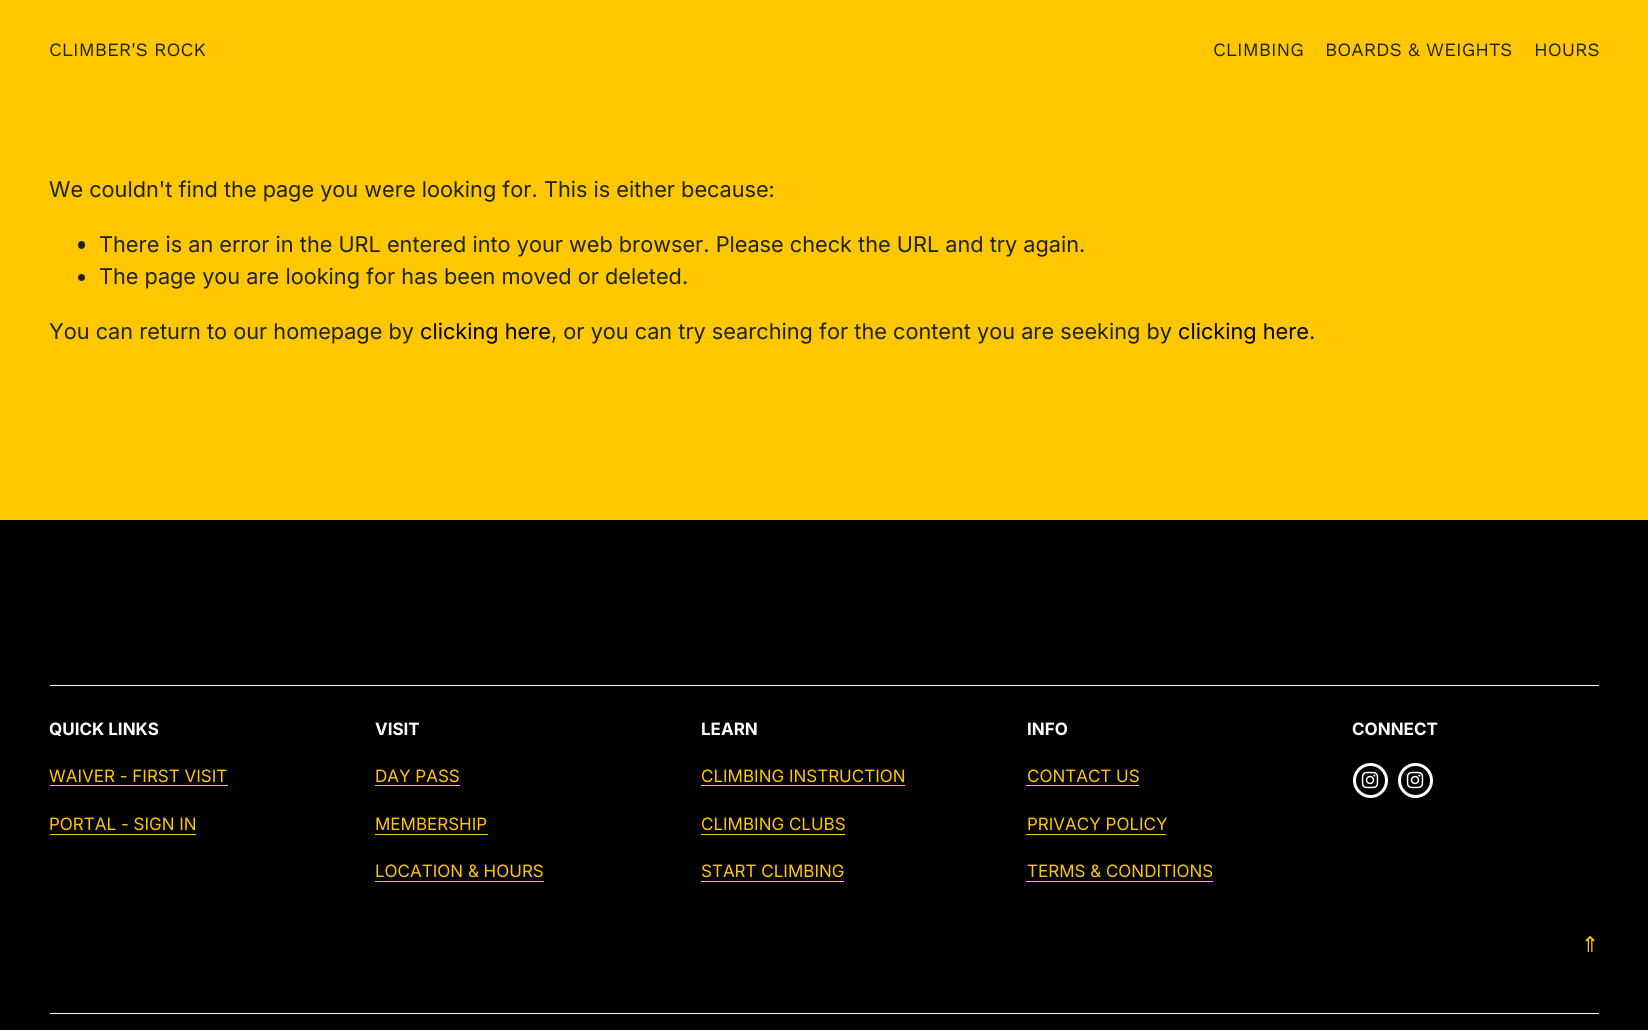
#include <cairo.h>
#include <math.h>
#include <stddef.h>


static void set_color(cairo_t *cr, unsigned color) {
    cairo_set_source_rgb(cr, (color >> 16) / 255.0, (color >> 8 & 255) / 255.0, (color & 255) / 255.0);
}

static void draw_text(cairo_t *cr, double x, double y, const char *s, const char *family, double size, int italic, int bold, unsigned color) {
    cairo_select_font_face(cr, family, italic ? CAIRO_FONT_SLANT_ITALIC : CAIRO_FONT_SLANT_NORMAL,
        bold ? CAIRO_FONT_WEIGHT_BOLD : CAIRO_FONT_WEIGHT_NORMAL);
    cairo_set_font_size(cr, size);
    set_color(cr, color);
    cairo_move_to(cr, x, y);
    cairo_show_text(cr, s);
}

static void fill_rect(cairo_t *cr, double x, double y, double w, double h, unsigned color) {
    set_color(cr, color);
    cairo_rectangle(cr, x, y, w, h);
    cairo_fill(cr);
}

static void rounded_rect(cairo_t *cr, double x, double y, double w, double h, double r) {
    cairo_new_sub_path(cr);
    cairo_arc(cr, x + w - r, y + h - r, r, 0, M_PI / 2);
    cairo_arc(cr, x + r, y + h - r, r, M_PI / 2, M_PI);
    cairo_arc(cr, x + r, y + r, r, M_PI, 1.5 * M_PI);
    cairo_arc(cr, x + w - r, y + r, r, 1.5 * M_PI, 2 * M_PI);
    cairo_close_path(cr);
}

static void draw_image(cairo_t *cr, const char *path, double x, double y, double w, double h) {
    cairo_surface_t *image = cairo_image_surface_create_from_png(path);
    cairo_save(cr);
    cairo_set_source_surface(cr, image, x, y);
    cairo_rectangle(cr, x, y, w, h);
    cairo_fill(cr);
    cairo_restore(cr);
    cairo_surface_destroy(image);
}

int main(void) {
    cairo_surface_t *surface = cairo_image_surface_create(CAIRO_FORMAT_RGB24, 1648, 1030);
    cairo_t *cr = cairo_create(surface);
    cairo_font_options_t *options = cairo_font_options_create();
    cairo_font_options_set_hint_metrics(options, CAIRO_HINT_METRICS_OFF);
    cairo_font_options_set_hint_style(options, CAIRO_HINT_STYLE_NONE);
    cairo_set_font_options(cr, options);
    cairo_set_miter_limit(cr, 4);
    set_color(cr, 0xFFC700);
    cairo_paint(cr);
    draw_text(cr, 49, 56, "CLIMBER'S ROCK", "Work Sans", 18.75, 0, 0, 0x1D231C);
    draw_text(cr, 1213, 56, "CLIMBING", "Work Sans", 18.75, 0, 0, 0x1D231C);
    draw_text(cr, 1325, 56, "BOARDS & WEIGHTS", "Work Sans", 18.75, 0, 0, 0x1D231C);
    draw_text(cr, 1534, 56, "HOURS", "Work Sans", 18.75, 0, 0, 0x1D231C);
    draw_text(cr, 49, 197, "We couldn't find the page you were looking for. This is either because:", "Inter", 21.7, 0, 0, 0x1D231C);
    rounded_rect(cr, 78, 241, 7, 8, 3.5);
    cairo_fill(cr);
    draw_text(cr, 99, 252, "There is an error in the URL entered into your web browser. Please check the URL and try again.", "Inter", 21.7, 0, 0, 0x1D231C);
    cairo_new_path(cr);
    cairo_arc(cr, 81.5, 277.5, 3.5, 0, 2 * M_PI);
    cairo_fill(cr);
    draw_text(cr, 99, 284, "The page you are looking for has been moved or deleted.", "Inter", 21.7, 0, 0, 0x1D231C);
    draw_text(cr, 49, 339, "You can return to our homepage by", "Inter", 21.7, 0, 0, 0x1D231C);
    draw_text(cr, 420, 339, "clicking here", "Inter", 21.7, 0, 0, 0x000000);
    draw_text(cr, 551, 339, ", or you can try searching for the content you are seeking by", "Inter", 21.7, 0, 0, 0x1D231C);
    draw_text(cr, 1178, 339, "clicking here", "Inter", 21.7, 0, 0, 0x000000);
    draw_text(cr, 1309, 339, ".", "Inter", 21.7, 0, 0, 0x1D231C);
    fill_rect(cr, 0, 520, 1648, 510, 0x000000);
    fill_rect(cr, 50, 685, 1549, 1, 0xFFFFFF);
    draw_text(cr, 49, 735, "QUICK LINKS", "Inter", 17, 0, 1, 0xFFFFFF);
    draw_text(cr, 375, 735, "VISIT", "Inter", 17, 0, 1, 0xFFFFFF);
    draw_text(cr, 701, 735, "LEARN", "Inter", 17, 0, 1, 0xFFFFFF);
    draw_text(cr, 1027, 735, "INFO", "Inter", 17, 0, 1, 0xFFFFFF);
    draw_text(cr, 1352, 735, "CONNECT", "Inter", 17, 0, 1, 0xFFFFFF);
    draw_text(cr, 49, 782, "WAIVER - FIRST VISIT", "Inter", 17, 0, 0, 0xFFC700);
    fill_rect(cr, 50, 785, 178, 1, 0xFFC700);
    draw_text(cr, 375, 782, "DAY PASS", "Inter", 17, 0, 0, 0xFFC700);
    fill_rect(cr, 375, 785, 85, 1, 0xFFC700);
    draw_text(cr, 701, 782, "CLIMBING INSTRUCTION", "Inter", 17, 0, 0, 0xFFC700);
    fill_rect(cr, 701, 785, 204, 1, 0xFFC700);
    draw_text(cr, 1027, 782, "CONTACT US", "Inter", 17, 0, 0, 0xFFC700);
    fill_rect(cr, 1026, 785, 113, 1, 0xFFC700);
    cairo_new_path(cr);
    cairo_arc(cr, 1370.5, 780.5, 16, 0, 2 * M_PI);
    set_color(cr, 0xFFFFFF);
    cairo_set_line_width(cr, 3);
    cairo_stroke(cr);
    draw_image(cr, "assets/img1.png", 1361, 771, 18, 18);
    cairo_arc(cr, 1415.5, 780.5, 16, 0, 2 * M_PI);
    cairo_stroke(cr);
    draw_image(cr, "assets/img1.png", 1406, 771, 18, 18);
    draw_text(cr, 49, 830, "PORTAL - SIGN IN", "Inter", 17, 0, 0, 0xFFC700);
    fill_rect(cr, 50, 834, 146, 1, 0xFFC700);
    draw_text(cr, 375, 830, "MEMBERSHIP", "Inter", 17, 0, 0, 0xFFC700);
    fill_rect(cr, 375, 834, 113, 1, 0xFFC700);
    draw_text(cr, 701, 830, "CLIMBING CLUBS", "Inter", 17, 0, 0, 0xFFC700);
    fill_rect(cr, 701, 834, 144, 1, 0xFFC700);
    draw_text(cr, 1027, 830, "PRIVACY POLICY", "Inter", 17, 0, 0, 0xFFC700);
    fill_rect(cr, 1026, 834, 140, 1, 0xFFC700);
    draw_text(cr, 375, 877, "LOCATION & HOURS", "Inter", 17, 0, 0, 0xFFC700);
    fill_rect(cr, 375, 881, 169, 1, 0xFFC700);
    draw_text(cr, 701, 877, "START CLIMBING", "Inter", 17, 0, 0, 0xFFC700);
    fill_rect(cr, 701, 881, 143, 1, 0xFFC700);
    draw_text(cr, 1027, 877, "TERMS & CONDITIONS", "Inter", 17, 0, 0, 0xFFC700);
    fill_rect(cr, 1026, 881, 187, 1, 0xFFC700);
    draw_text(cr, 1581, 952, "⇑", "DejaVu Sans", 21.7, 0, 0, 0xFFC700);
    fill_rect(cr, 50, 1013, 1549, 1, 0xFFFFFF);
    cairo_surface_write_to_png(surface, "output.png");
    cairo_font_options_destroy(options);
    cairo_destroy(cr);
    cairo_surface_destroy(surface);
    return 0;
}
